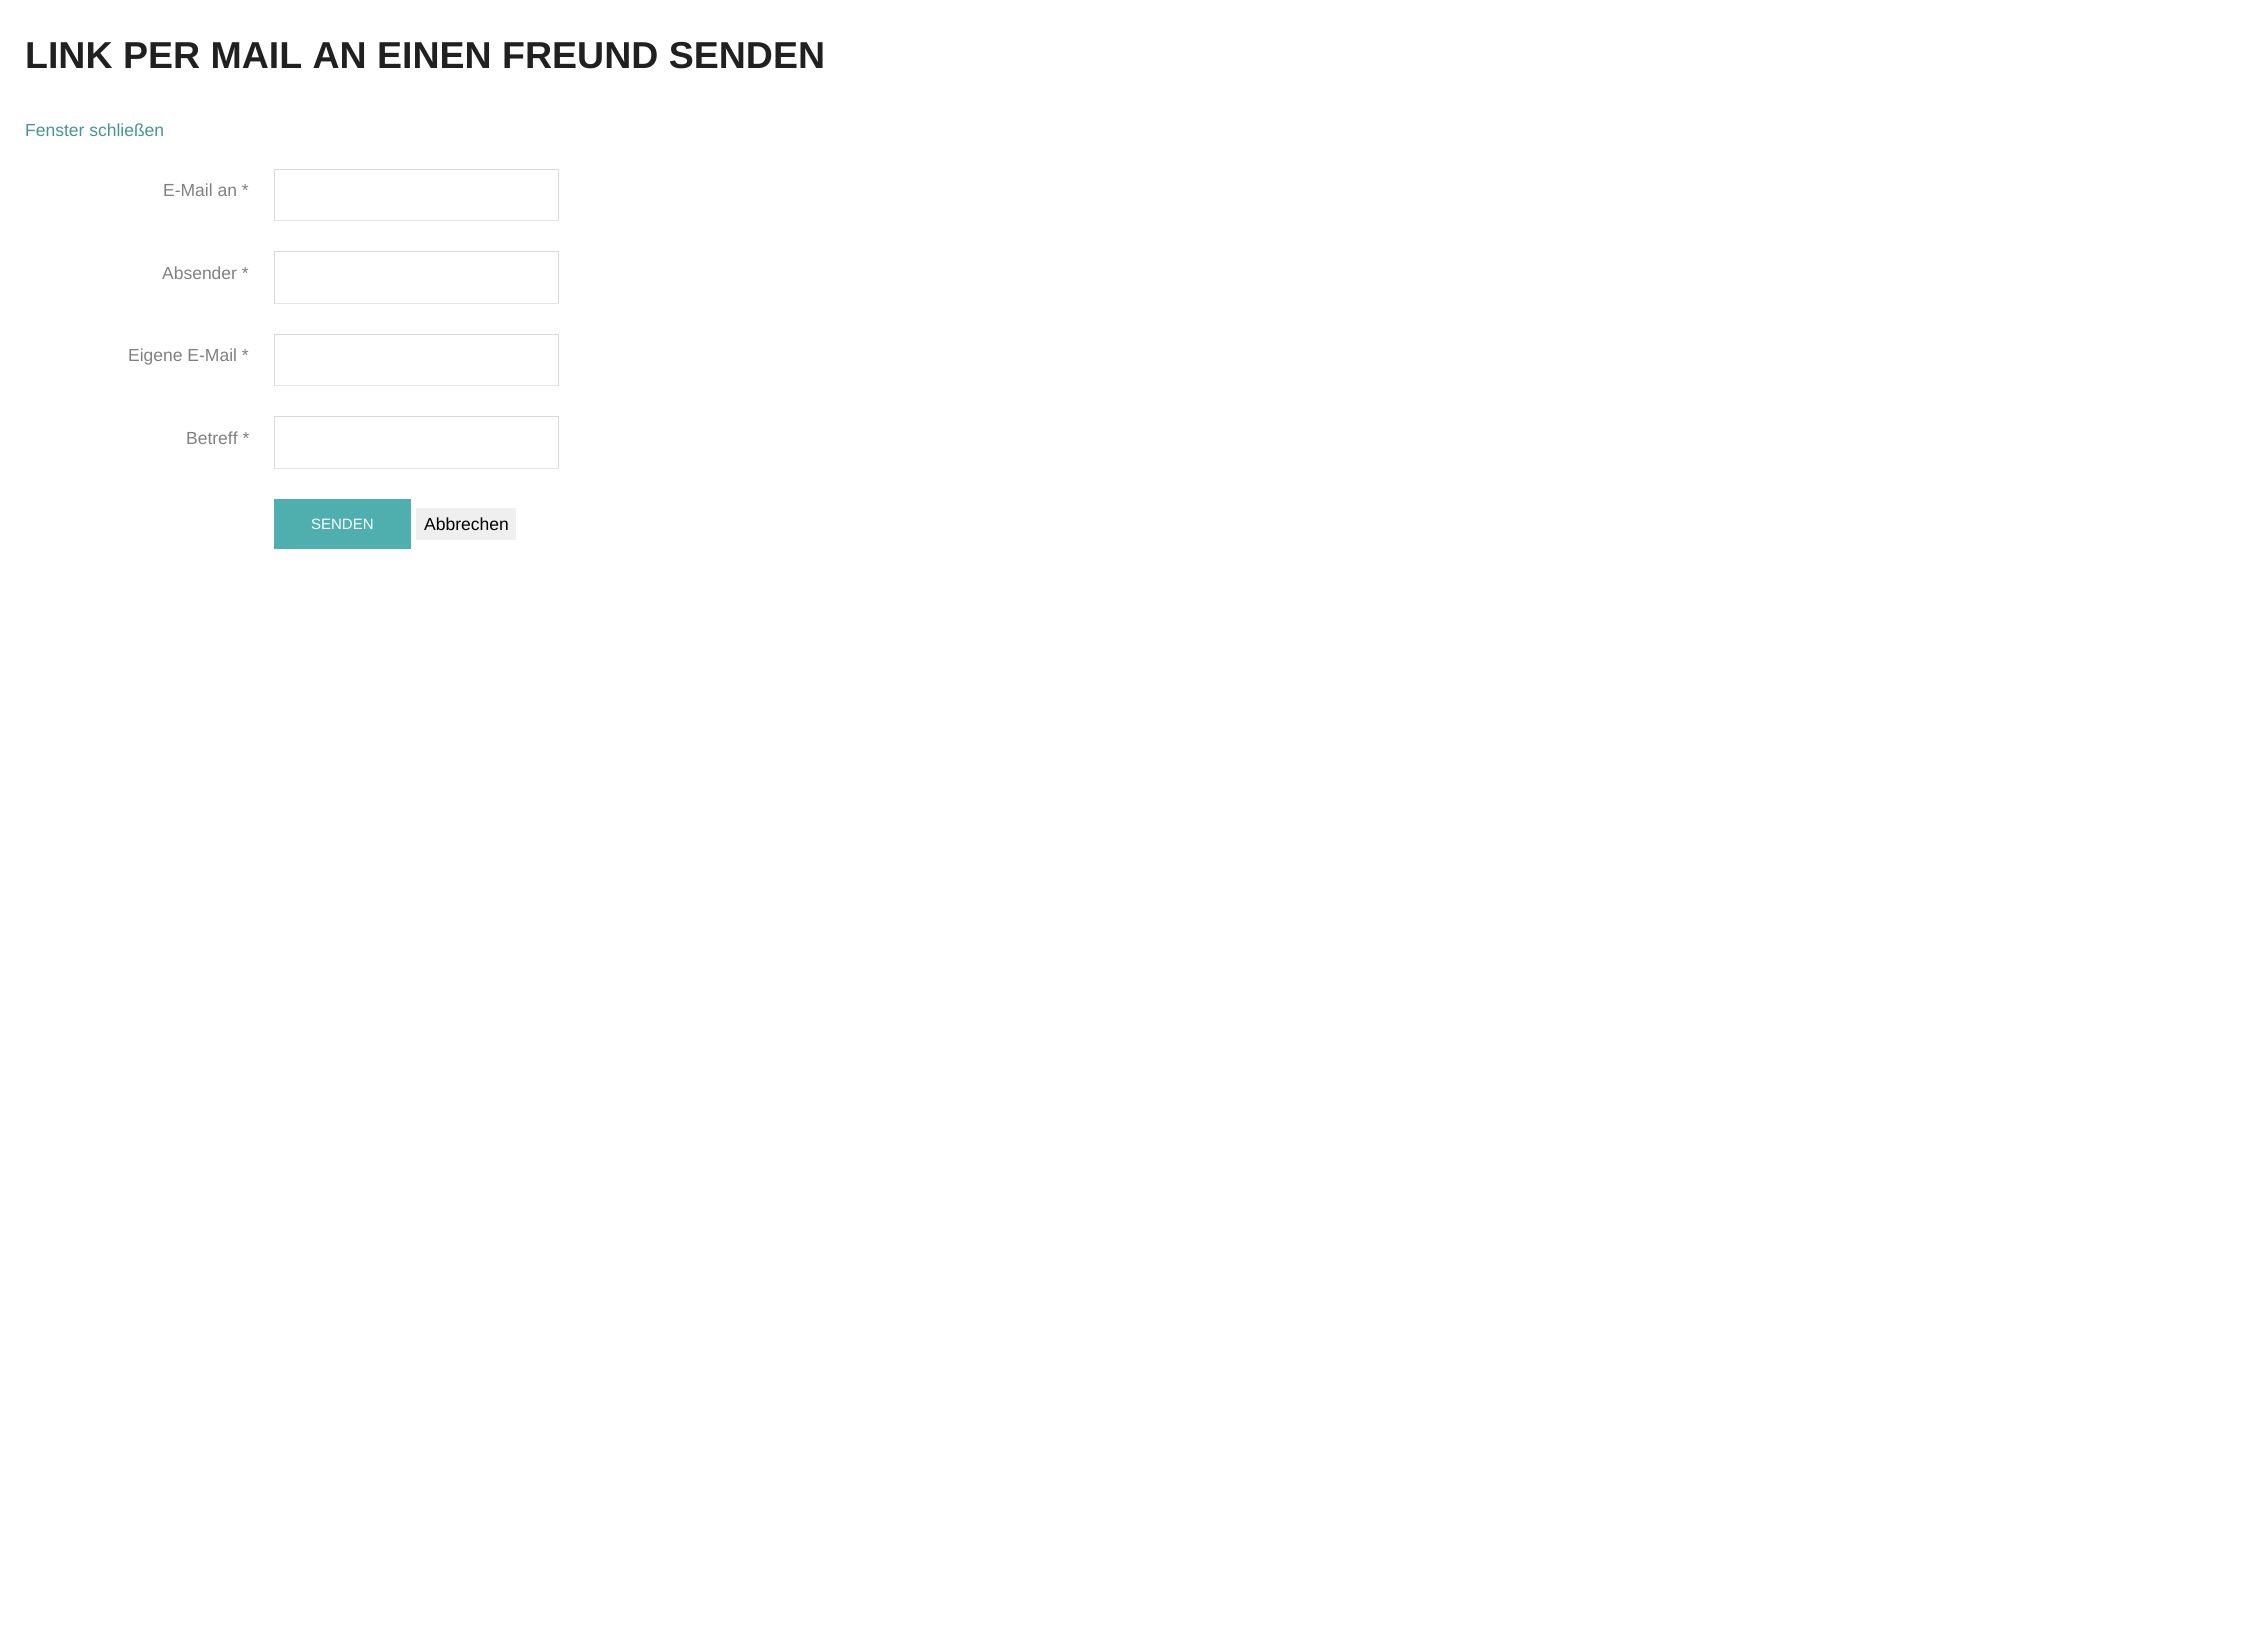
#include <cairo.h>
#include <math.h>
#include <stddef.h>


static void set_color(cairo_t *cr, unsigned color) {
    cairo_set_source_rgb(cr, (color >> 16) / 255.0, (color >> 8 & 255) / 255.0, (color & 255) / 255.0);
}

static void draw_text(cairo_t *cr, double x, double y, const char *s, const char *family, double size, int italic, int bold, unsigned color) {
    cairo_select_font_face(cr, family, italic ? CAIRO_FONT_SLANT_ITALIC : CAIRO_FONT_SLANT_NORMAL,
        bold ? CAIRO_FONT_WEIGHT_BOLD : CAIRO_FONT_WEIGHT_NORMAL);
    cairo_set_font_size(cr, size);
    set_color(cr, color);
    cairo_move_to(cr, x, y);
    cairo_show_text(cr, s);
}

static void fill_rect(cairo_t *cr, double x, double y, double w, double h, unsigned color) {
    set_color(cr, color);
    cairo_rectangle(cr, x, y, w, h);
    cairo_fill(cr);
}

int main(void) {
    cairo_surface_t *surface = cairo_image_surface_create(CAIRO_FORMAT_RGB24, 2257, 1640);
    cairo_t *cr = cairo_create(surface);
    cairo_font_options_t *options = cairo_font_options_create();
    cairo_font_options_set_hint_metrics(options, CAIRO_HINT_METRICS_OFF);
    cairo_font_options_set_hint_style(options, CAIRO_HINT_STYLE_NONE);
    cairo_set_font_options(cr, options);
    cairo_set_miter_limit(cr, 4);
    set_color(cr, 0xFFFFFF);
    cairo_paint(cr);
    draw_text(cr, 25, 68, "LINK PER MAIL AN EINEN FREUND SENDEN", "Liberation Sans", 37.5, 0, 1, 0x202020);
    draw_text(cr, 25, 136, "Fenster schließen", "Liberation Sans", 17.5, 0, 0, 0x479494);
    draw_text(cr, 163, 196, "E-Mail an *", "Liberation Sans", 17.5, 0, 0, 0x808080);
    fill_rect(cr, 274, 169, 285, 1, 0xD9D9D9);
    fill_rect(cr, 558, 169, 1, 52, 0xD9D9D9);
    fill_rect(cr, 274, 220, 285, 1, 0xE5E5E5);
    fill_rect(cr, 274, 169, 1, 52, 0xD9D9D9);
    draw_text(cr, 162, 279, "Absender *", "Liberation Sans", 17.5, 0, 0, 0x808080);
    fill_rect(cr, 274, 251, 285, 1, 0xD9D9D9);
    fill_rect(cr, 558, 251, 1, 53, 0xD9D9D9);
    fill_rect(cr, 274, 303, 285, 1, 0xE5E5E5);
    fill_rect(cr, 274, 251, 1, 53, 0xD9D9D9);
    draw_text(cr, 128, 361, "Eigene E-Mail *", "Liberation Sans", 17.5, 0, 0, 0x808080);
    fill_rect(cr, 274, 334, 285, 1, 0xD9D9D9);
    fill_rect(cr, 558, 334, 1, 52, 0xD9D9D9);
    fill_rect(cr, 274, 385, 285, 1, 0xE5E5E5);
    fill_rect(cr, 274, 334, 1, 52, 0xD9D9D9);
    draw_text(cr, 186, 444, "Betreff *", "Liberation Sans", 17.5, 0, 0, 0x808080);
    fill_rect(cr, 274, 416, 285, 1, 0xD9D9D9);
    fill_rect(cr, 558, 416, 1, 53, 0xD9D9D9);
    fill_rect(cr, 274, 468, 285, 1, 0xE5E5E5);
    fill_rect(cr, 274, 416, 1, 53, 0xD9D9D9);
    fill_rect(cr, 274, 499, 137, 50, 0x4FAFAF);
    draw_text(cr, 311, 529, "SENDEN", "Liberation Sans", 15, 0, 0, 0xFFFFFF);
    fill_rect(cr, 416, 508, 100, 32, 0xEFEFEF);
    draw_text(cr, 424, 530, "Abbrechen", "Liberation Sans", 17.5, 0, 0, 0x000000);
    cairo_surface_write_to_png(surface, "output.png");
    cairo_font_options_destroy(options);
    cairo_destroy(cr);
    cairo_surface_destroy(surface);
    return 0;
}
